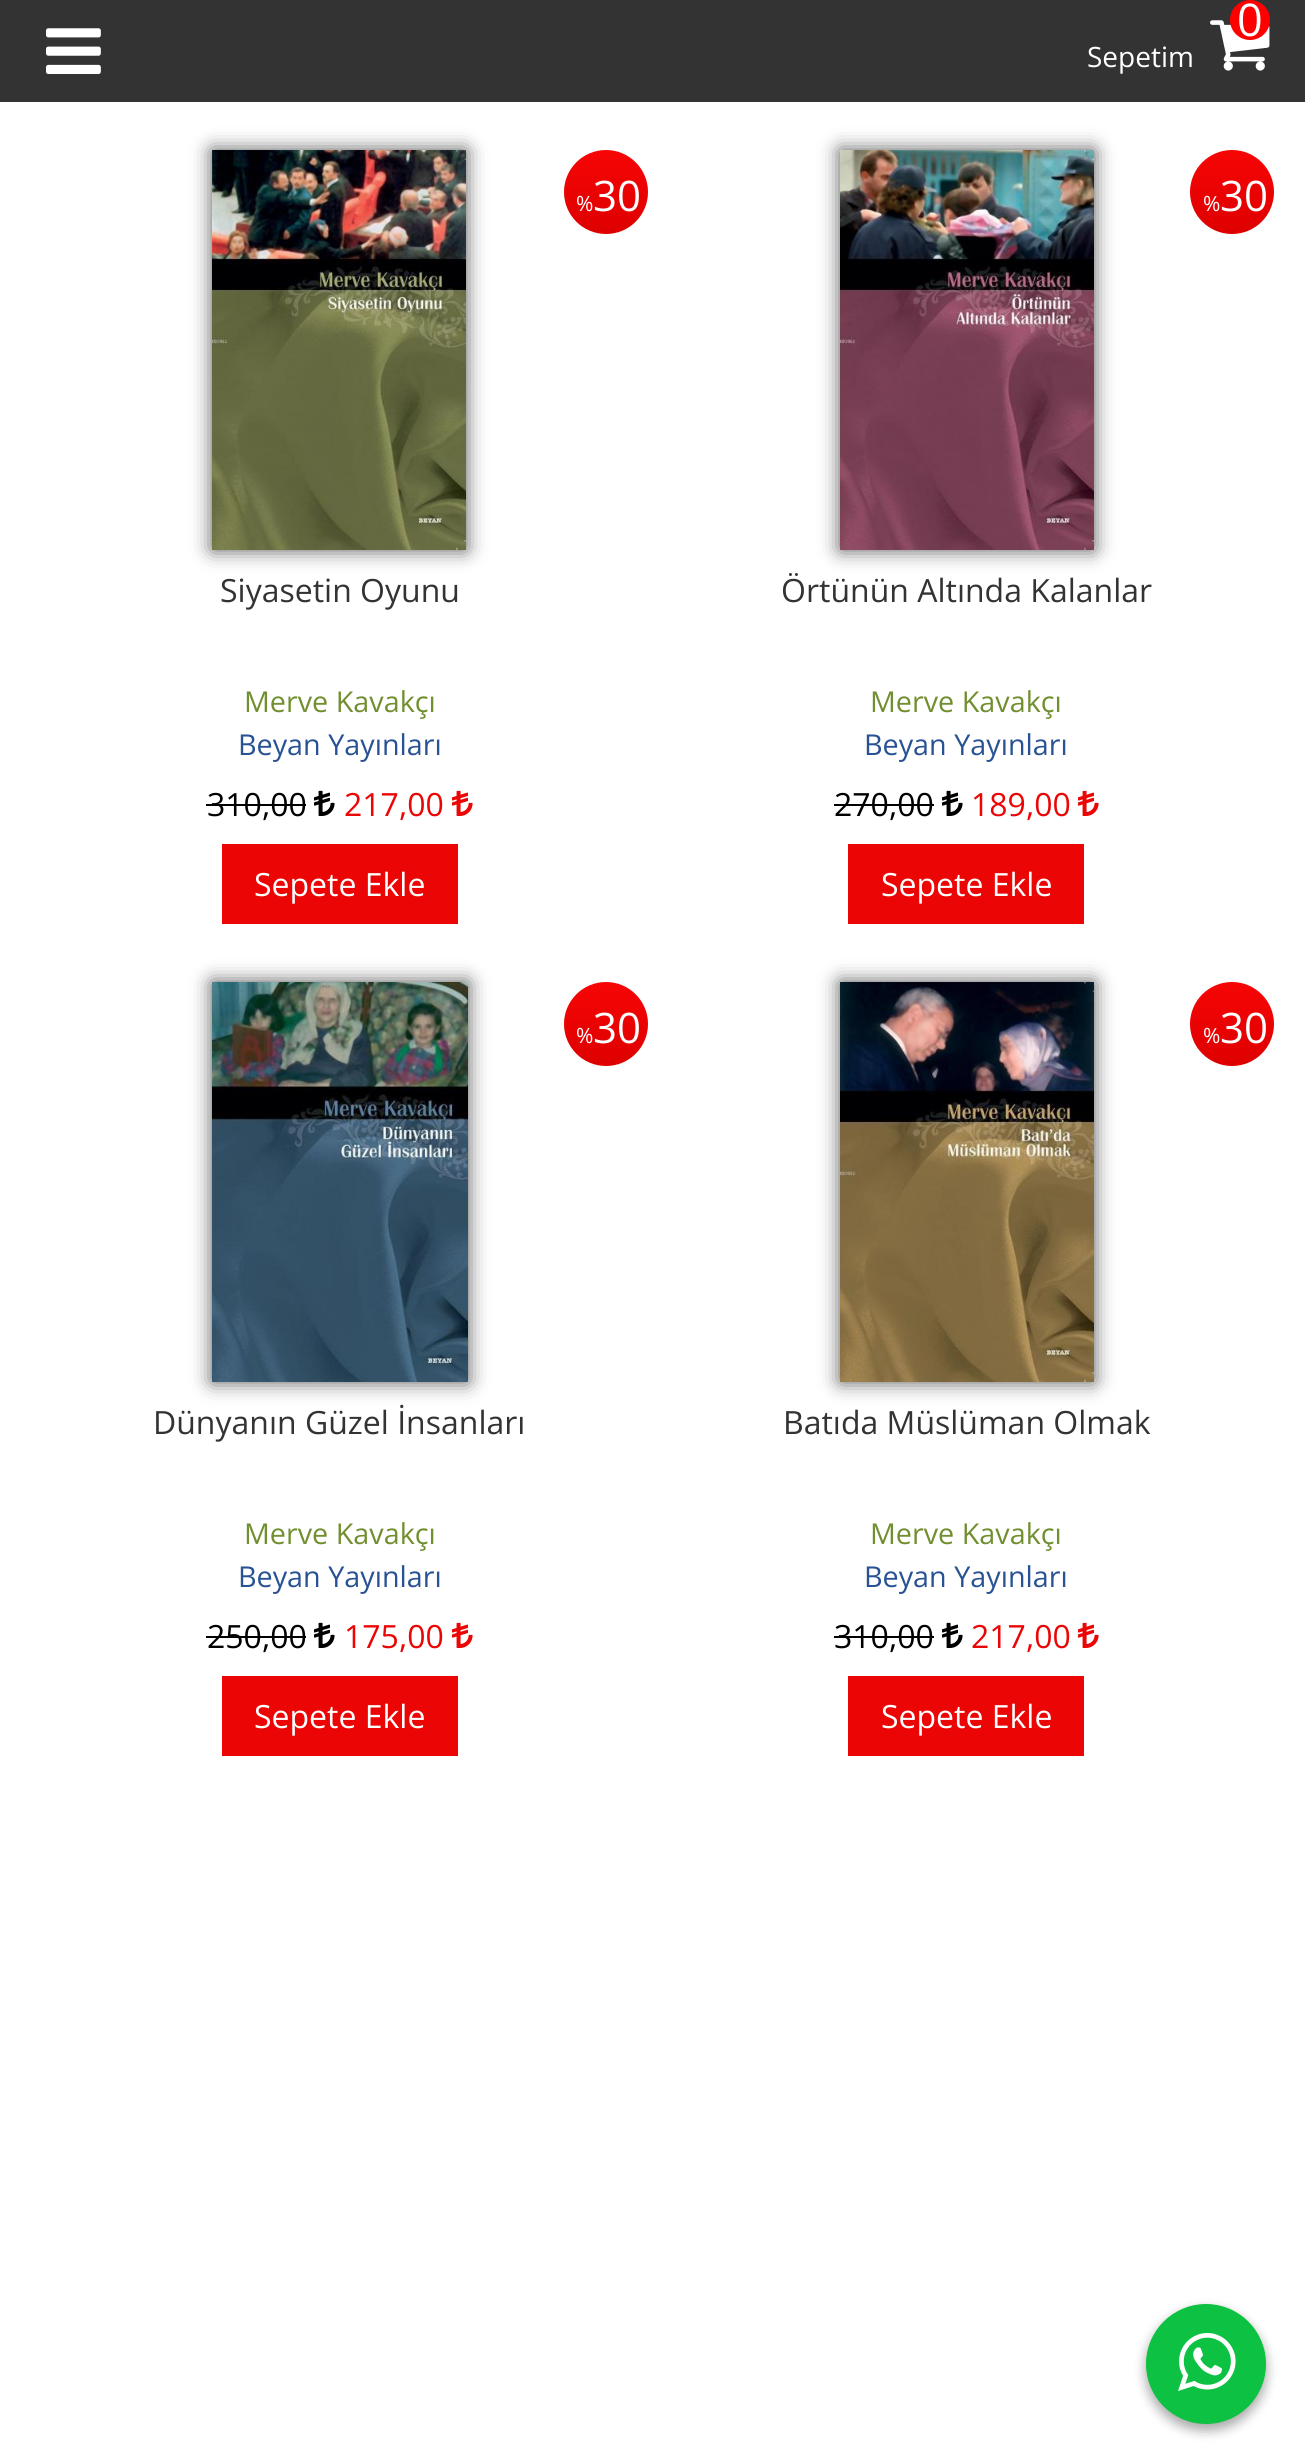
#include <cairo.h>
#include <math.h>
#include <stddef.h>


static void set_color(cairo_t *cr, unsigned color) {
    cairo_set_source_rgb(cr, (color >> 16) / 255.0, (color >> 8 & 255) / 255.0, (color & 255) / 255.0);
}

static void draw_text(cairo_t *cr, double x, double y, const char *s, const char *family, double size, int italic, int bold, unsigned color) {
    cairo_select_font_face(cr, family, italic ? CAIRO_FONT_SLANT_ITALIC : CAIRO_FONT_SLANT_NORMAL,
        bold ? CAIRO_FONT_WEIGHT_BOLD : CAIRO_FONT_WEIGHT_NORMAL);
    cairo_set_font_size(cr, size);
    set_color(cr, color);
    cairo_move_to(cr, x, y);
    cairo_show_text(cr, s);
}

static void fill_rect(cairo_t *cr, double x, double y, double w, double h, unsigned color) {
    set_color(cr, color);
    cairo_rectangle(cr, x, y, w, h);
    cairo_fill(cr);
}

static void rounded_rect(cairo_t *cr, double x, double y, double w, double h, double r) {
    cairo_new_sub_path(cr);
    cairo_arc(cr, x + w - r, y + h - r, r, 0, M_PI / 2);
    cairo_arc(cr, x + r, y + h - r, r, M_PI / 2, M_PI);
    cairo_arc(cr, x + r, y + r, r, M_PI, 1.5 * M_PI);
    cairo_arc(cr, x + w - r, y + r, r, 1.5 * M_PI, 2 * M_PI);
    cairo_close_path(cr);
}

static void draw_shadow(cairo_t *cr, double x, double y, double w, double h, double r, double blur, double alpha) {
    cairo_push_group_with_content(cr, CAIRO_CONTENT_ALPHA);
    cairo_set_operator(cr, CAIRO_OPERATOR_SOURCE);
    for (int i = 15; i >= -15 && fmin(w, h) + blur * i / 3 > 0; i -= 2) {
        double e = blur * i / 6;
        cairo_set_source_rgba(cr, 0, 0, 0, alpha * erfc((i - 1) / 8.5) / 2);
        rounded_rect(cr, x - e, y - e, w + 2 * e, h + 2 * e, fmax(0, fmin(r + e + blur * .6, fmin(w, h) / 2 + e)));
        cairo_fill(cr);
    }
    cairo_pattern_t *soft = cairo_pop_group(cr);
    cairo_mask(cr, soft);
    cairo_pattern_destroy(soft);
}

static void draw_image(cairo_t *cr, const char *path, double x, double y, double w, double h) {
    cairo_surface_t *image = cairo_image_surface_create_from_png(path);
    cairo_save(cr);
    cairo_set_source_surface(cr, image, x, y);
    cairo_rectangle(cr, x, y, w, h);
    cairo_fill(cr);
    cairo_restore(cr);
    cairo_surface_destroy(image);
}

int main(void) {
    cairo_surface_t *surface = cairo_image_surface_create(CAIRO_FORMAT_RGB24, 1305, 2463);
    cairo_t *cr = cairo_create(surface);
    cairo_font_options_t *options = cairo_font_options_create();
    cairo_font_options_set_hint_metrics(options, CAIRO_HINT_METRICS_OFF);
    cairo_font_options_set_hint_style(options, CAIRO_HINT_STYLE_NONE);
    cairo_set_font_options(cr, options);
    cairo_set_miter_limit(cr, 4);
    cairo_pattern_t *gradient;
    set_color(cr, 0xFFFFFF);
    cairo_paint(cr);
    fill_rect(cr, 0, 0, 1305, 102, 0x333333);
    draw_image(cr, "assets/img1.png", 46, 28, 55, 46);
    draw_image(cr, "assets/img2.png", 1210, 20, 60, 51);
    set_color(cr, 0xFF0000);
    cairo_arc(cr, 1250, 20, 20, 0, 2 * M_PI);
    cairo_fill(cr);
    draw_text(cr, 1237, 36, "0", "Open Sans", 45, 0, 0, 0xFFFFFF);
    draw_text(cr, 1087, 67, "Sepetim", "Open Sans", 28, 0, 0, 0xFFFFFF);
    set_color(cr, 0x000000);
    draw_shadow(cr, 212, 150, 254, 400, 0, 10, 0.66);
    draw_image(cr, "assets/img3.png", 212, 150, 254, 400);
    gradient = cairo_pattern_create_linear(606, 150, 606, 234);
    cairo_pattern_add_color_stop_rgba(gradient, 0, 0.969, 0.02, 0.02, 1);
    cairo_pattern_add_color_stop_rgba(gradient, 1, 0.867, 0, 0, 1);
    cairo_set_source(cr, gradient);
    cairo_pattern_destroy(gradient);
    cairo_arc(cr, 606, 192, 42, 0, 2 * M_PI);
    cairo_fill(cr);
    draw_text(cr, 576, 211, "%", "Open Sans", 21, 0, 0, 0xFFFFFF);
    draw_text(cr, 593, 211, "30", "Open Sans", 42, 0, 0, 0xFFFFFF);
    draw_text(cr, 220, 602, "Siyasetin Oyunu", "Open Sans", 32, 0, 0, 0x333333);
    draw_text(cr, 244, 712, "Merve Kavakçı", "Open Sans", 28.75, 0, 0, 0x718F2F);
    draw_text(cr, 238, 755, "Beyan Yayınları", "Open Sans", 28.75, 0, 0, 0x285294);
    draw_text(cr, 207, 816, "310,00", "Open Sans", 32, 0, 0, 0x000000);
    fill_rect(cr, 206, 804, 100, 2, 0x000000);
    draw_image(cr, "assets/img4.png", 314, 790, 21, 26);
    draw_text(cr, 344, 816, "217,00", "Open Sans", 32, 0, 0, 0xEB0505);
    draw_image(cr, "assets/img5.png", 452, 790, 21, 26);
    fill_rect(cr, 222, 844, 236, 80, 0xEB0505);
    draw_text(cr, 254, 896, "Sepete Ekle", "Open Sans", 32, 0, 0, 0xFFFFFF);
    set_color(cr, 0x000000);
    draw_shadow(cr, 840, 150, 254, 400, 0, 10, 0.66);
    draw_image(cr, "assets/img6.png", 840, 150, 254, 400);
    gradient = cairo_pattern_create_linear(1232, 150, 1232, 234);
    cairo_pattern_add_color_stop_rgba(gradient, 0, 0.969, 0.02, 0.02, 1);
    cairo_pattern_add_color_stop_rgba(gradient, 1, 0.867, 0, 0, 1);
    cairo_set_source(cr, gradient);
    cairo_pattern_destroy(gradient);
    cairo_arc(cr, 1232, 192, 42, 0, 2 * M_PI);
    cairo_fill(cr);
    draw_text(cr, 1203, 211, "%", "Open Sans", 21, 0, 0, 0xFFFFFF);
    draw_text(cr, 1220, 211, "30", "Open Sans", 42, 0, 0, 0xFFFFFF);
    draw_text(cr, 781, 602, "Örtünün Altında Kalanlar", "Open Sans", 32, 0, 0, 0x333333);
    draw_text(cr, 870, 712, "Merve Kavakçı", "Open Sans", 28.75, 0, 0, 0x718F2F);
    draw_text(cr, 864, 755, "Beyan Yayınları", "Open Sans", 28.75, 0, 0, 0x285294);
    draw_text(cr, 834, 816, "270,00", "Open Sans", 32, 0, 0, 0x000000);
    fill_rect(cr, 834, 804, 100, 2, 0x000000);
    draw_image(cr, "assets/img4.png", 942, 790, 21, 26);
    draw_text(cr, 971, 816, "189,00", "Open Sans", 32, 0, 0, 0xEB0505);
    draw_image(cr, "assets/img5.png", 1078, 790, 21, 26);
    fill_rect(cr, 848, 844, 236, 80, 0xEB0505);
    draw_text(cr, 881, 896, "Sepete Ekle", "Open Sans", 32, 0, 0, 0xFFFFFF);
    set_color(cr, 0x000000);
    draw_shadow(cr, 212, 982, 256, 400, 0, 10, 0.66);
    draw_image(cr, "assets/img7.png", 212, 982, 256, 400);
    gradient = cairo_pattern_create_linear(606, 982, 606, 1066);
    cairo_pattern_add_color_stop_rgba(gradient, 0, 0.969, 0.02, 0.02, 1);
    cairo_pattern_add_color_stop_rgba(gradient, 1, 0.867, 0, 0, 1);
    cairo_set_source(cr, gradient);
    cairo_pattern_destroy(gradient);
    cairo_arc(cr, 606, 1024, 42, 0, 2 * M_PI);
    cairo_fill(cr);
    draw_text(cr, 576, 1043, "%", "Open Sans", 21, 0, 0, 0xFFFFFF);
    draw_text(cr, 593, 1043, "30", "Open Sans", 42, 0, 0, 0xFFFFFF);
    draw_text(cr, 153, 1434, "Dünyanın Güzel İnsanları", "Open Sans", 32, 0, 0, 0x333333);
    draw_text(cr, 244, 1544, "Merve Kavakçı", "Open Sans", 28.75, 0, 0, 0x718F2F);
    draw_text(cr, 238, 1587, "Beyan Yayınları", "Open Sans", 28.75, 0, 0, 0x285294);
    draw_text(cr, 207, 1648, "250,00", "Open Sans", 32, 0, 0, 0x000000);
    fill_rect(cr, 206, 1636, 100, 2, 0x000000);
    draw_image(cr, "assets/img4.png", 314, 1622, 21, 26);
    draw_text(cr, 344, 1648, "175,00", "Open Sans", 32, 0, 0, 0xEB0505);
    draw_image(cr, "assets/img5.png", 452, 1622, 21, 26);
    fill_rect(cr, 222, 1676, 236, 80, 0xEB0505);
    draw_text(cr, 254, 1728, "Sepete Ekle", "Open Sans", 32, 0, 0, 0xFFFFFF);
    set_color(cr, 0x000000);
    draw_shadow(cr, 840, 982, 254, 400, 0, 10, 0.66);
    draw_image(cr, "assets/img8.png", 840, 982, 254, 400);
    gradient = cairo_pattern_create_linear(1232, 982, 1232, 1066);
    cairo_pattern_add_color_stop_rgba(gradient, 0, 0.969, 0.02, 0.02, 1);
    cairo_pattern_add_color_stop_rgba(gradient, 1, 0.867, 0, 0, 1);
    cairo_set_source(cr, gradient);
    cairo_pattern_destroy(gradient);
    cairo_arc(cr, 1232, 1024, 42, 0, 2 * M_PI);
    cairo_fill(cr);
    draw_text(cr, 1203, 1043, "%", "Open Sans", 21, 0, 0, 0xFFFFFF);
    draw_text(cr, 1220, 1043, "30", "Open Sans", 42, 0, 0, 0xFFFFFF);
    draw_text(cr, 783, 1434, "Batıda Müslüman Olmak", "Open Sans", 32, 0, 0, 0x333333);
    draw_text(cr, 870, 1544, "Merve Kavakçı", "Open Sans", 28.75, 0, 0, 0x718F2F);
    draw_text(cr, 864, 1587, "Beyan Yayınları", "Open Sans", 28.75, 0, 0, 0x285294);
    draw_text(cr, 834, 1648, "310,00", "Open Sans", 32, 0, 0, 0x000000);
    fill_rect(cr, 834, 1636, 100, 2, 0x000000);
    draw_image(cr, "assets/img4.png", 942, 1622, 21, 26);
    draw_text(cr, 971, 1648, "217,00", "Open Sans", 32, 0, 0, 0xEB0505);
    draw_image(cr, "assets/img5.png", 1078, 1622, 21, 26);
    fill_rect(cr, 848, 1676, 236, 80, 0xEB0505);
    draw_text(cr, 881, 1728, "Sepete Ekle", "Open Sans", 32, 0, 0, 0xFFFFFF);
    set_color(cr, 0x000000);
    draw_shadow(cr, 1146, 2310, 120, 120, 60, 6, 0.23);
    draw_shadow(cr, 1146, 2310, 120, 120, 60, 6, 0.16);
    set_color(cr, 0x0DC143);
    cairo_arc(cr, 1206, 2364, 60, 0, 2 * M_PI);
    cairo_fill(cr);
    draw_image(cr, "assets/img9.png", 1178, 2333, 58, 58);
    cairo_surface_write_to_png(surface, "output.png");
    cairo_font_options_destroy(options);
    cairo_destroy(cr);
    cairo_surface_destroy(surface);
    return 0;
}
